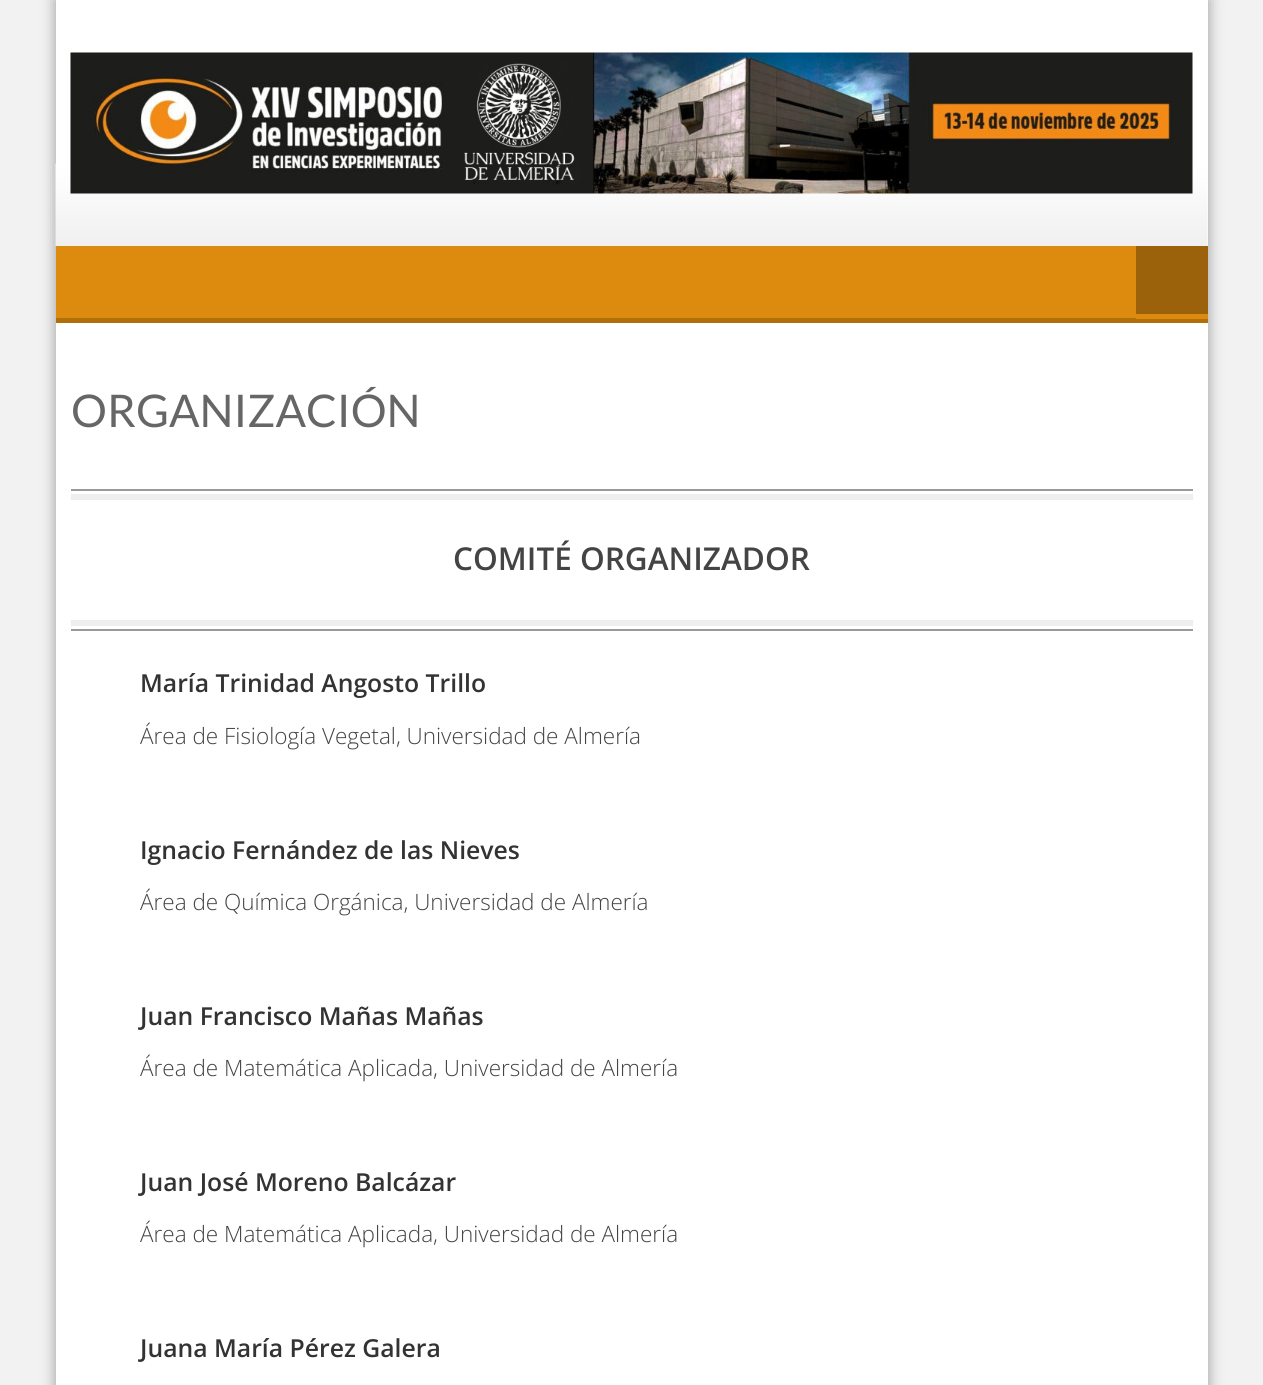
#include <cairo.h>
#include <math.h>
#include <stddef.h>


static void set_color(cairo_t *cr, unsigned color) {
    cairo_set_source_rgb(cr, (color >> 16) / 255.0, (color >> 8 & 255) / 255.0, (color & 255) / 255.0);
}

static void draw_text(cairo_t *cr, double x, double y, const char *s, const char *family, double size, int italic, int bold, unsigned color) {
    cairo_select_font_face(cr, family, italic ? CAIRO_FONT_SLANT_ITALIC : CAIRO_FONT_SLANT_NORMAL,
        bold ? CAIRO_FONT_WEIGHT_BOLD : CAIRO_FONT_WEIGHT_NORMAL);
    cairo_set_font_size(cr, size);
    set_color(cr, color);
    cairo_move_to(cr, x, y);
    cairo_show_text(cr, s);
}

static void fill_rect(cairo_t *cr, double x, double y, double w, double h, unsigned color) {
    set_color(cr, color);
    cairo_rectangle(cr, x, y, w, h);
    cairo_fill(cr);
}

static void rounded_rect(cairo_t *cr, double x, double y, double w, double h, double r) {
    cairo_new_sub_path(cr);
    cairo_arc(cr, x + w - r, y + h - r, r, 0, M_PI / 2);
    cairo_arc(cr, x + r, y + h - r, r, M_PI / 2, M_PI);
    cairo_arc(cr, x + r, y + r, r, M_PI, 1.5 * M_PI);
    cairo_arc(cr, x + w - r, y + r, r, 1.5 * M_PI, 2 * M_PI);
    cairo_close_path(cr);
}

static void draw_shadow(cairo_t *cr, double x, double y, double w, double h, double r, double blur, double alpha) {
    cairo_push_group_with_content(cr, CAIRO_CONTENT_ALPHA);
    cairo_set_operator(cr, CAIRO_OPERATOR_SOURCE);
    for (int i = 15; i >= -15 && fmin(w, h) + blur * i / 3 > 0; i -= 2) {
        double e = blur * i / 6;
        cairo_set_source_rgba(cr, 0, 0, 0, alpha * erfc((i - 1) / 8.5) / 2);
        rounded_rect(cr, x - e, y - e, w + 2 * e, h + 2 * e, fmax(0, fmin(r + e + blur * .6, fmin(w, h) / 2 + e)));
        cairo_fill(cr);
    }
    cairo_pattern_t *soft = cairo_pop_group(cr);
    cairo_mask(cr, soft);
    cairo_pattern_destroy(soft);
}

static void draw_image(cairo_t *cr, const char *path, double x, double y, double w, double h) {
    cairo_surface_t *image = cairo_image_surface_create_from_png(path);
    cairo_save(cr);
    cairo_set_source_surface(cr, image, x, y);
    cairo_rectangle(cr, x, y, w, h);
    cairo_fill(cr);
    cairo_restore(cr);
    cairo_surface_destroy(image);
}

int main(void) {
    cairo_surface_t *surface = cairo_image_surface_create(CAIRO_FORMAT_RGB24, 1263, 1385);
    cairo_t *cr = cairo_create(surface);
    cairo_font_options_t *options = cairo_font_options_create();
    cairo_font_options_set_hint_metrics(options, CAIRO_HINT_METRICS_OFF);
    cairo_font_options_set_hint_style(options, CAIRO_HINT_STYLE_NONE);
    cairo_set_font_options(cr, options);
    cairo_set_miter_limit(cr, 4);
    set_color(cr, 0xF2F2F2);
    cairo_paint(cr);
    set_color(cr, 0x999999);
    draw_shadow(cr, 56, 0, 1152, 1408, 0, 7.5, 1);
    fill_rect(cr, 56, 0, 1152, 1385, 0xFFFFFF);
    draw_image(cr, "assets/img1.png", 55, 163, 1153, 83);
    draw_image(cr, "assets/img2.png", 70, 52, 1123, 142);
    fill_rect(cr, 56, 246, 1080, 72, 0xDD8B0F);
    fill_rect(cr, 56, 318, 1152, 5, 0xB16F0C);
    fill_rect(cr, 1136, 246, 72, 68, 0x9B610B);
    fill_rect(cr, 1136, 314, 72, 5, 0xDD8B0F);
    draw_text(cr, 71, 427, "ORGANIZACIÓN", "Lato", 45, 0, 0, 0x666666);
    fill_rect(cr, 71, 489, 1122, 2, 0x999999);
    fill_rect(cr, 71, 629, 1122, 2, 0x999999);
    fill_rect(cr, 71, 494, 1122, 6, 0xEEEEEE);
    fill_rect(cr, 71, 620, 1122, 6, 0xEEEEEE);
    draw_text(cr, 453, 570, "COMITÉ ORGANIZADOR", "Open Sans SemiBold", 31.5, 0, 0, 0x444444);
    draw_text(cr, 140, 692, "María Trinidad Angosto Trillo", "Open Sans SemiBold", 24.75, 0, 0, 0x333333);
    draw_text(cr, 140, 744, "Área de Fisiología Vegetal, Universidad de Almería", "Open Sans Light", 22.5, 0, 0, 0x444444);
    draw_text(cr, 140, 859, "Ignacio Fernández de las Nieves", "Open Sans SemiBold", 24.75, 0, 0, 0x333333);
    draw_text(cr, 140, 910, "Área de Química Orgánica, Universidad de Almería", "Open Sans Light", 22.5, 0, 0, 0x444444);
    draw_text(cr, 140, 1025, "Juan Francisco Mañas Mañas", "Open Sans SemiBold", 24.75, 0, 0, 0x333333);
    draw_text(cr, 140, 1076, "Área de Matemática Aplicada, Universidad de Almería", "Open Sans Light", 22.5, 0, 0, 0x444444);
    draw_text(cr, 140, 1191, "Juan José Moreno Balcázar", "Open Sans SemiBold", 24.75, 0, 0, 0x333333);
    draw_text(cr, 140, 1242, "Área de Matemática Aplicada, Universidad de Almería", "Open Sans Light", 22.5, 0, 0, 0x444444);
    draw_text(cr, 140, 1357, "Juana María Pérez Galera", "Open Sans SemiBold", 24.75, 0, 0, 0x333333);
    cairo_surface_write_to_png(surface, "output.png");
    cairo_font_options_destroy(options);
    cairo_destroy(cr);
    cairo_surface_destroy(surface);
    return 0;
}
